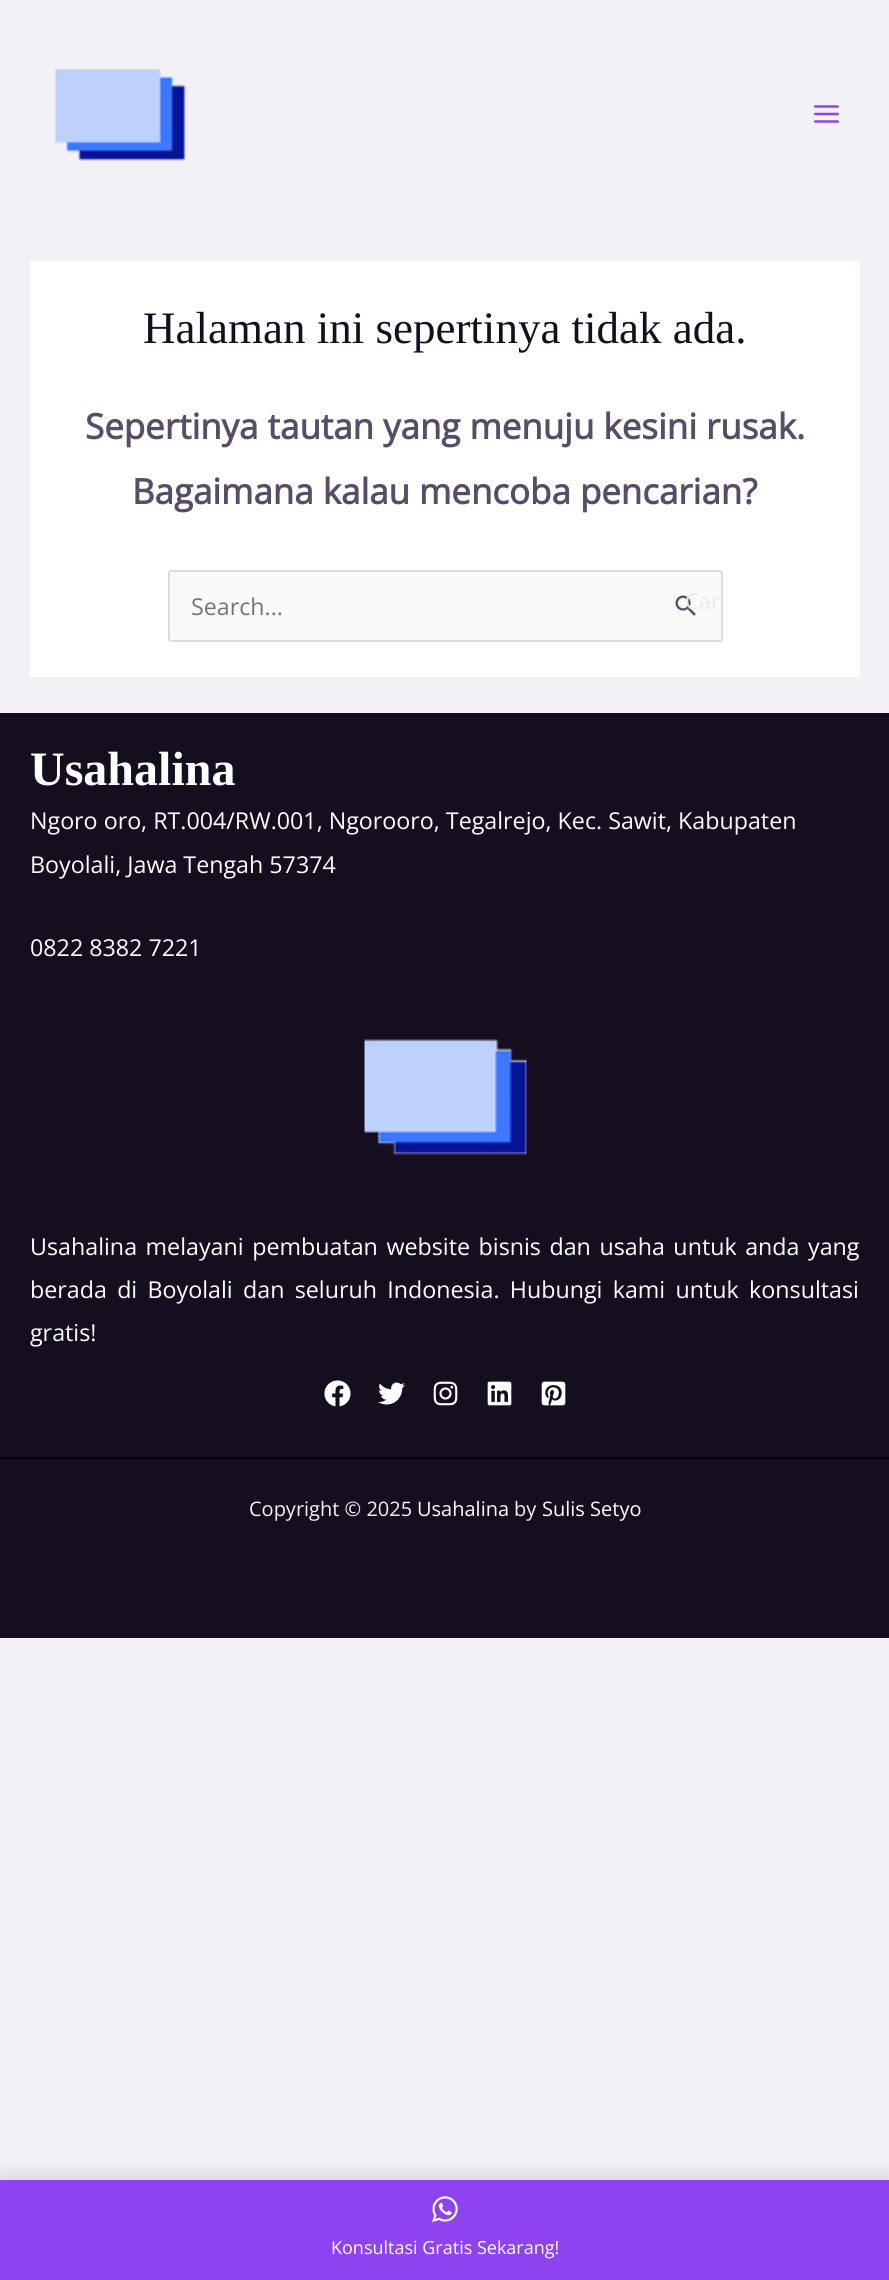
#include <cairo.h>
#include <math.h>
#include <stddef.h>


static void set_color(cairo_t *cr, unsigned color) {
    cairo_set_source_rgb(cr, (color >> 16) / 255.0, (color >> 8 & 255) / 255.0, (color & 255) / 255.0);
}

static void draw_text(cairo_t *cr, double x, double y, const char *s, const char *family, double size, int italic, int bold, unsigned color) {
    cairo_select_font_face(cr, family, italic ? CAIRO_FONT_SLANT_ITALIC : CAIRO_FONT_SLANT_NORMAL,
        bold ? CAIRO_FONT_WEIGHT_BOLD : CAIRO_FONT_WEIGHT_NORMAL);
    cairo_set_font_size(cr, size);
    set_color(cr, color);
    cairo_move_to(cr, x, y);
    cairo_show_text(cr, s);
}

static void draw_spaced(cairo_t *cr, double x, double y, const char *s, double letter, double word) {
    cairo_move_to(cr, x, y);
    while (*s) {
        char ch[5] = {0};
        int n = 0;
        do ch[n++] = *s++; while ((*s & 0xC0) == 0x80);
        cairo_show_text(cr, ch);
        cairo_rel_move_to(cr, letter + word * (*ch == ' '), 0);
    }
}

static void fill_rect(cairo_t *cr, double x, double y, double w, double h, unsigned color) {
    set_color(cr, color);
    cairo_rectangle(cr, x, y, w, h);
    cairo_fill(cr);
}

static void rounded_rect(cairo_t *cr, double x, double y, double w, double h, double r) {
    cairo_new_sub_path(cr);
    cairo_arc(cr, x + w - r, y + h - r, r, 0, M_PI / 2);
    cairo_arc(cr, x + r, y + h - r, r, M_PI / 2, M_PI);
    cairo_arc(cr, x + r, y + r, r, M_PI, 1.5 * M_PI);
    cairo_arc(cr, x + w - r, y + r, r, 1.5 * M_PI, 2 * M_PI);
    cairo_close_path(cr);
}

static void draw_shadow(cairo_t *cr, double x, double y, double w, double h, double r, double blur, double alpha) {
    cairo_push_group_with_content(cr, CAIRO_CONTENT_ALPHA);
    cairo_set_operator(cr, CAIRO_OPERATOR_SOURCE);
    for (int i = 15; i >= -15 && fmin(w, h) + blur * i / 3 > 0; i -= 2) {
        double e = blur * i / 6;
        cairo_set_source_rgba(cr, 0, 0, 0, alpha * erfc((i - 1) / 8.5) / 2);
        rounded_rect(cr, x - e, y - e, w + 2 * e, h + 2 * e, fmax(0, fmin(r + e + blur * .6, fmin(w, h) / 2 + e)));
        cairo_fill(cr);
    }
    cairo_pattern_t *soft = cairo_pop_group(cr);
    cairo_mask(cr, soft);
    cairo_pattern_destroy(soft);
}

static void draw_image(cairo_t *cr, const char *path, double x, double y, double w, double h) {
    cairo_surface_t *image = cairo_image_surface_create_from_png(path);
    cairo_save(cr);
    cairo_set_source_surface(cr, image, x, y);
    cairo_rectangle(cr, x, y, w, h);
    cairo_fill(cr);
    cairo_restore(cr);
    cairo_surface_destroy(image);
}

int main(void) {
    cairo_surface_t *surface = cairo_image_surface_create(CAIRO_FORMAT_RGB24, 889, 2280);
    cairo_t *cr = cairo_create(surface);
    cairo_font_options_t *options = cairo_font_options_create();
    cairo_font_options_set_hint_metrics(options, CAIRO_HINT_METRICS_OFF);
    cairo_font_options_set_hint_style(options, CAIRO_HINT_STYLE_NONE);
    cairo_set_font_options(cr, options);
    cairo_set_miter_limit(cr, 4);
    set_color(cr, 0xF3F1F6);
    cairo_paint(cr);
    draw_image(cr, "assets/img1.png", 54, 68, 133, 93);
    draw_image(cr, "assets/img2.png", 814, 105, 25, 18);
    fill_rect(cr, 30, 261, 830, 416, 0xFFFFFF);
    draw_text(cr, 143, 343, "Halaman ini sepertinya tidak ada.", "Liberation Serif", 45, 0, 0, 0x150E1F);
    draw_text(cr, 85, 439, "Sepertinya tautan yang menuju kesini rusak.", "Open Sans", 34.9, 0, 1, 0x584D66);
    draw_text(cr, 132, 504, "Bagaimana kalau mencoba pencarian?", "Open Sans", 34.9, 0, 1, 0x584D66);
    set_color(cr, 0xFAFAFA);
    rounded_rect(cr, 169, 571, 553, 70, 2);
    cairo_fill_preserve(cr);
    set_color(cr, 0xDDDDDD);
    cairo_stroke(cr);
    draw_text(cr, 191, 615, "Search...", "Open Sans", 23.25, 0, 0, 0x757575);
    draw_image(cr, "assets/img3.png", 675, 595, 21, 21);
    draw_text(cr, 685, 609, "Car", "Open Sans", 22, 0, 0, 0xEAE9EB);
    fill_rect(cr, 0, 713, 889, 744, 0x150E1F);
    draw_text(cr, 30, 785, "Usahalina", "Liberation Serif", 48, 0, 1, 0xFFFFFF);
    draw_text(cr, 30, 829, "Ngoro oro, RT.004/RW.001, Ngorooro, Tegalrejo, Kec. Sawit, Kabupaten", "Open Sans", 23.25, 0, 0, 0xFFFFFF);
    draw_text(cr, 30, 873, "Boyolali, Jawa Tengah 57374", "Open Sans", 23.25, 0, 0, 0xFFFFFF);
    draw_text(cr, 30, 956, "0822 8382 7221", "Open Sans", 23.25, 0, 0, 0xFFFFFF);
    draw_image(cr, "assets/img4.png", 364, 1039, 163, 117);
    draw_spaced(cr, 30, 1255, "Usahalina melayani pembuatan website bisnis dan usaha untuk anda yang", 0, 2.5);
    draw_spaced(cr, 30, 1298, "berada di Boyolali dan seluruh Indonesia. Hubungi kami untuk konsultasi", 0, 4.25);
    draw_text(cr, 30, 1341, "gratis!", "Open Sans", 23.25, 0, 0, 0xFFFFFF);
    draw_image(cr, "assets/img5.png", 324, 1380, 27, 27);
    draw_image(cr, "assets/img6.png", 378, 1382, 27, 23);
    draw_image(cr, "assets/img7.png", 433, 1381, 25, 25);
    draw_image(cr, "assets/img8.png", 487, 1381, 25, 25);
    draw_image(cr, "assets/img9.png", 541, 1381, 25, 25);
    fill_rect(cr, 0, 1459, 889, 179, 0x150E1F);
    fill_rect(cr, 0, 1457, 889, 2, 0x000000);
    draw_text(cr, 249, 1516, "Copyright © 2025", "Open Sans", 20, 0, 0, 0xF3F1F6);
    draw_text(cr, 417, 1516, "Usahalina", "Open Sans", 20, 0, 0, 0xFFFFFF);
    draw_text(cr, 514, 1516, "by", "Open Sans", 20, 0, 0, 0xF3F1F6);
    draw_text(cr, 542, 1516, "Sulis Setyo", "Open Sans", 20, 0, 0, 0xFFFFFF);
    set_color(cr, 0x000000);
    draw_shadow(cr, 0, 2172, 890, 101, 0, 7.5, 0.1);
    fill_rect(cr, 0, 2180, 889, 100, 0x8E43F0);
    draw_image(cr, "assets/img10.png", 432, 2196, 26, 27);
    draw_text(cr, 331, 2254, "Konsultasi Gratis Sekarang!", "Open Sans", 18, 0, 0, 0xFFFFFF);
    cairo_surface_write_to_png(surface, "output.png");
    cairo_font_options_destroy(options);
    cairo_destroy(cr);
    cairo_surface_destroy(surface);
    return 0;
}
